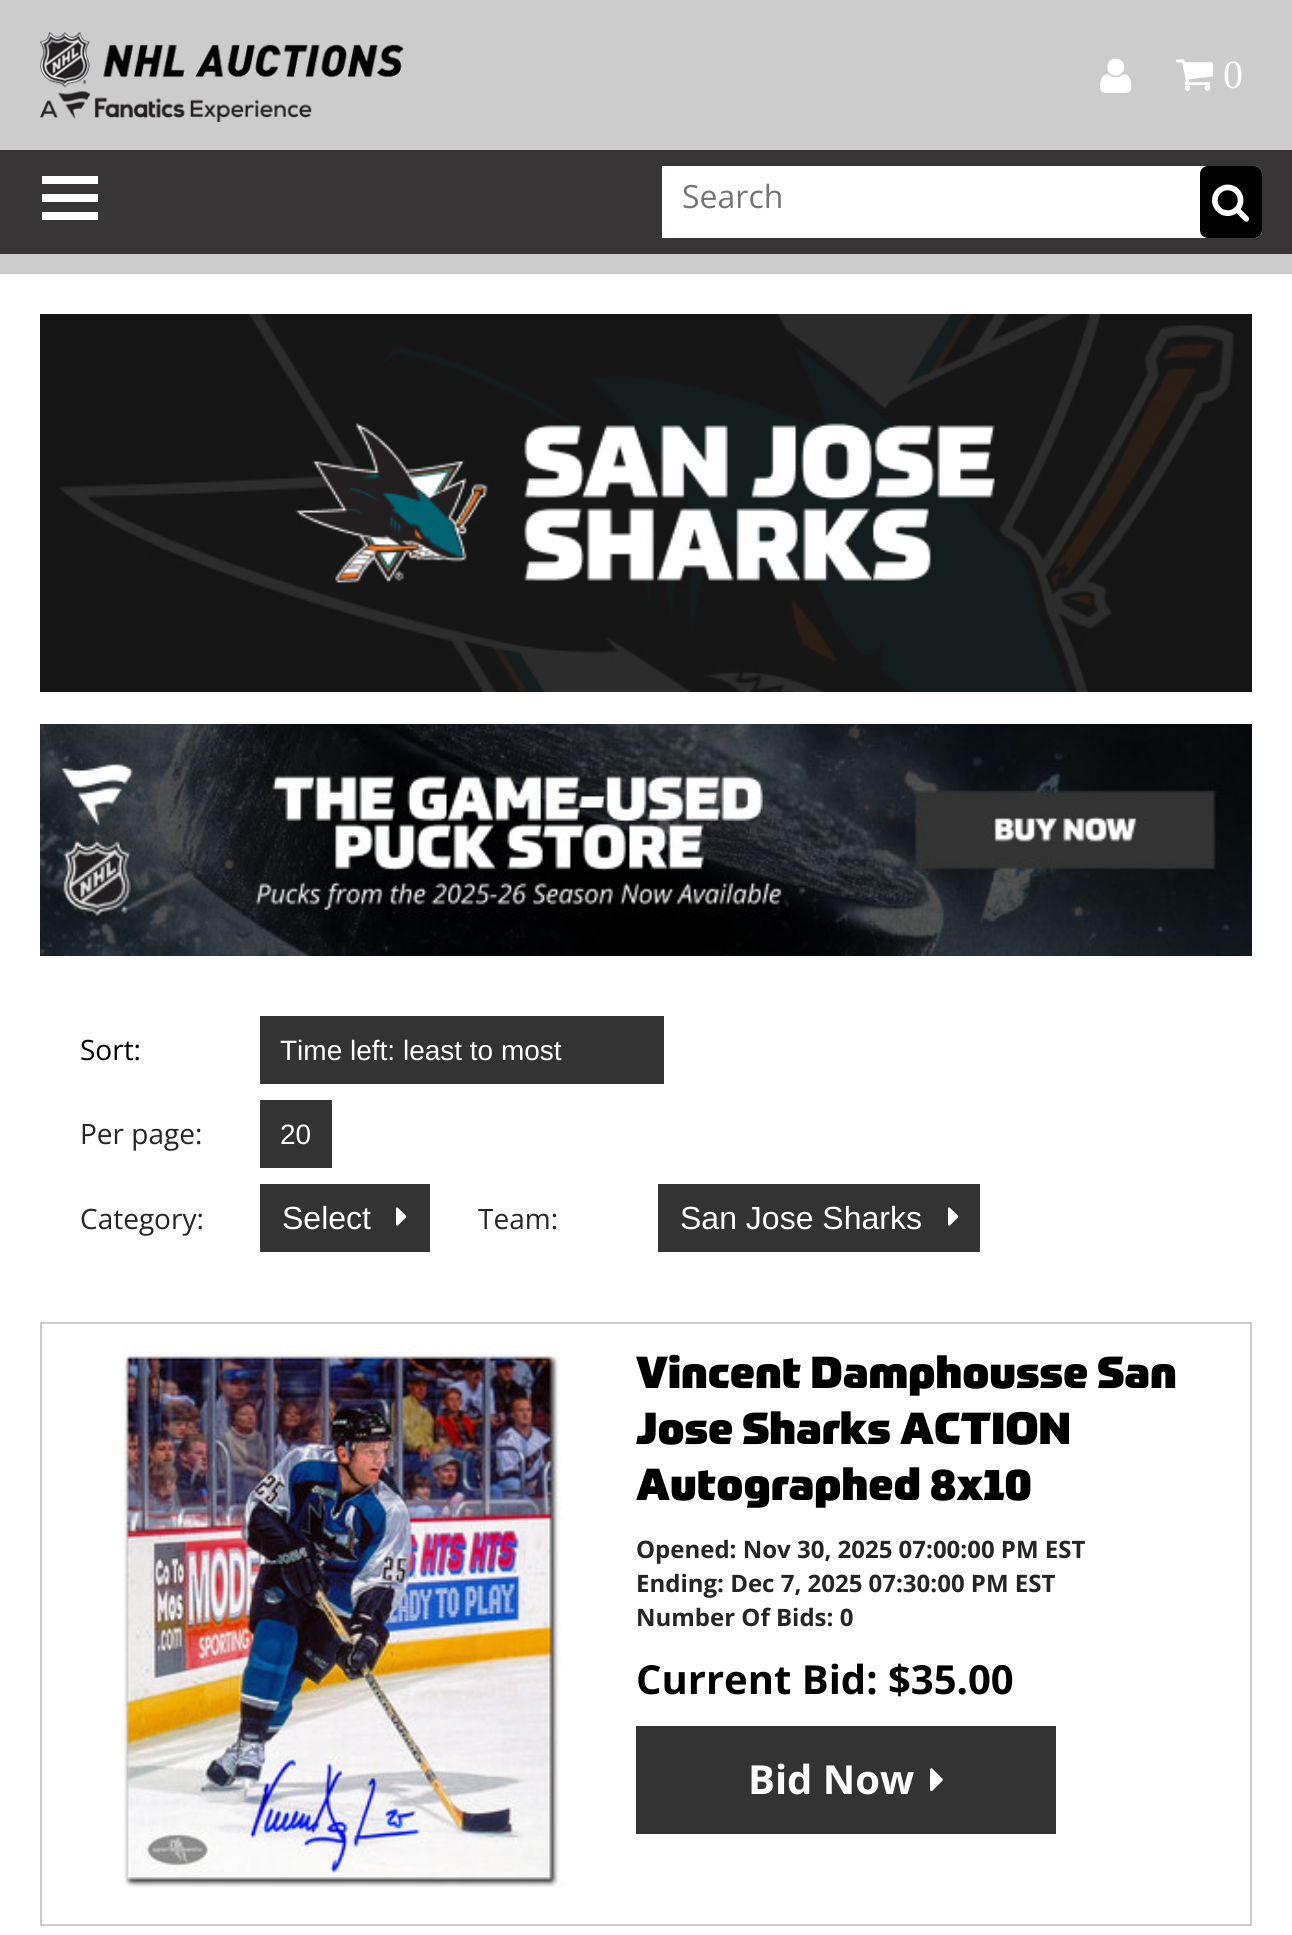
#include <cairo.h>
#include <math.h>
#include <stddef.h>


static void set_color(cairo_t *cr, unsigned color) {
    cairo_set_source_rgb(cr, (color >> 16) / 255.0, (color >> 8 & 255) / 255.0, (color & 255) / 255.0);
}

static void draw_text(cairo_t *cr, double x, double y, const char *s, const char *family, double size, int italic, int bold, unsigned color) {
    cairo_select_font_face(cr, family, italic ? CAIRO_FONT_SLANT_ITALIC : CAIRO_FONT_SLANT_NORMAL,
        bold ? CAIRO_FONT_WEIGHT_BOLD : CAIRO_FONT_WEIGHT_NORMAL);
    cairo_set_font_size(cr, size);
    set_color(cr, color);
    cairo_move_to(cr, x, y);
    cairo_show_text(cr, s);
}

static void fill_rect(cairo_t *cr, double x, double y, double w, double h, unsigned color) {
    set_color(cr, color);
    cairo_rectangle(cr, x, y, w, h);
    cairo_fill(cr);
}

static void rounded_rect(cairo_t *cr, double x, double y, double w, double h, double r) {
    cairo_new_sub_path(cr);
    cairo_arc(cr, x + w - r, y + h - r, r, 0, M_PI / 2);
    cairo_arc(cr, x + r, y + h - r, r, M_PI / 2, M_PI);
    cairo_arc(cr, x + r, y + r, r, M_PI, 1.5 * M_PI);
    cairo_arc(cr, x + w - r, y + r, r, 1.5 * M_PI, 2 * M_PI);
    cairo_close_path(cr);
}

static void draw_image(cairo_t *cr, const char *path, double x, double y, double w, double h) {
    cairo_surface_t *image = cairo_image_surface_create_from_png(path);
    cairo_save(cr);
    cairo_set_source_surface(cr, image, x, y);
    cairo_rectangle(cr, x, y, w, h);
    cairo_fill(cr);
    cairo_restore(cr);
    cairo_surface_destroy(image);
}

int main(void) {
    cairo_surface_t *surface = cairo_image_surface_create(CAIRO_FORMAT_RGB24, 1292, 1935);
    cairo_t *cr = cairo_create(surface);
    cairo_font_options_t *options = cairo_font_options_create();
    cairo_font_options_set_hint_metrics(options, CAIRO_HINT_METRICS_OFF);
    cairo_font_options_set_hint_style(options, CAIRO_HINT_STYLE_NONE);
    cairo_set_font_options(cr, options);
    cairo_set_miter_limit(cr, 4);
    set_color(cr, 0xFFFFFF);
    cairo_paint(cr);
    fill_rect(cr, 0, 0, 1292, 274, 0xCCCCCC);
    draw_image(cr, "assets/img1.png", 1176, 59, 38, 32);
    draw_text(cr, 1223, 88, "0", "Liberation Serif", 40, 0, 0, 0xFFFFFF);
    draw_image(cr, "assets/img2.png", 40, 32, 364, 90);
    draw_image(cr, "assets/img3.png", 1100, 58, 32, 35);
    fill_rect(cr, 0, 150, 1292, 104, 0x373536);
    fill_rect(cr, 42, 194, 56, 8, 0xFFFFFF);
    fill_rect(cr, 42, 176, 56, 8, 0xFFFFFF);
    fill_rect(cr, 42, 212, 56, 8, 0xFFFFFF);
    cairo_new_path(cr);
    cairo_move_to(cr, 662, 166);
    cairo_line_to(cr, 1254, 166);
    cairo_curve_to(cr, 1258.5, 166, 1262, 169.5, 1262, 174);
    cairo_line_to(cr, 1262, 230);
    cairo_curve_to(cr, 1262, 234.5, 1258.5, 238, 1254, 238);
    cairo_line_to(cr, 662, 238);
    cairo_close_path(cr);
    cairo_fill(cr);
    draw_text(cr, 682, 208, "Search", "Open Sans", 32, 0, 0, 0x757575);
    set_color(cr, 0x000000);
    rounded_rect(cr, 1200, 166, 62, 72, 8);
    cairo_fill(cr);
    draw_image(cr, "assets/img4.png", 1212, 184, 38, 38);
    draw_image(cr, "assets/img5.png", 40, 314, 1212, 378);
    draw_image(cr, "assets/img6.png", 40, 724, 1212, 232);
    draw_text(cr, 80, 1060, "Sort:", "Open Sans", 28, 0, 0, 0x000000);
    fill_rect(cr, 260, 1016, 404, 68, 0x333333);
    draw_text(cr, 280, 1060, "Time left: least to most", "Liberation Sans", 28, 0, 0, 0xFFFFFF);
    draw_text(cr, 80, 1144, "Per page:", "Open Sans", 28, 0, 0, 0x262525);
    fill_rect(cr, 260, 1100, 72, 68, 0x333333);
    draw_text(cr, 280, 1144, "20", "Liberation Sans", 28, 0, 0, 0xFFFFFF);
    draw_text(cr, 80, 1229, "Category:", "Open Sans", 28, 0, 0, 0x262525);
    fill_rect(cr, 260, 1184, 170, 68, 0x333333);
    draw_text(cr, 282, 1229, "Select", "Liberation Sans", 32, 0, 0, 0xFFFFFF);
    draw_image(cr, "assets/img7.png", 396, 1207, 11, 19);
    draw_text(cr, 478, 1229, "Team:", "Open Sans", 28, 0, 0, 0x262525);
    fill_rect(cr, 658, 1184, 322, 68, 0x333333);
    draw_text(cr, 680, 1229, "San Jose Sharks", "Liberation Sans", 32, 0, 0, 0xFFFFFF);
    draw_image(cr, "assets/img7.png", 948, 1207, 11, 19);
    cairo_rectangle(cr, 41, 1323, 1210, 602);
    set_color(cr, 0xCCCCCC);
    cairo_stroke(cr);
    draw_image(cr, "assets/img8.png", 121, 1344, 442, 543);
    draw_text(cr, 636, 1388, "Vincent Damphousse San", "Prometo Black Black", 44, 0, 0, 0x000000);
    draw_text(cr, 636, 1444, "Jose Sharks ACTION", "Prometo Black Black", 44, 0, 0, 0x000000);
    draw_text(cr, 636, 1500, "Autographed 8x10", "Prometo Black Black", 44, 0, 0, 0x000000);
    draw_text(cr, 636, 1558, "Opened: Nov 30, 2025 07:00:00 PM EST", "Open Sans", 24, 0, 1, 0x262525);
    draw_text(cr, 636, 1592, "Ending: Dec 7, 2025 07:30:00 PM EST", "Open Sans", 24, 0, 1, 0x262525);
    draw_text(cr, 636, 1626, "Number Of Bids: 0", "Open Sans", 24, 0, 1, 0x262525);
    draw_text(cr, 636, 1694, "Current Bid: $35.00", "Open Sans", 40, 0, 1, 0x000000);
    fill_rect(cr, 636, 1726, 420, 108, 0x333333);
    draw_text(cr, 748, 1794, "Bid Now", "Open Sans", 40, 0, 1, 0xFFFFFF);
    draw_image(cr, "assets/img9.png", 930, 1768, 13, 24);
    cairo_surface_write_to_png(surface, "output.png");
    cairo_font_options_destroy(options);
    cairo_destroy(cr);
    cairo_surface_destroy(surface);
    return 0;
}
